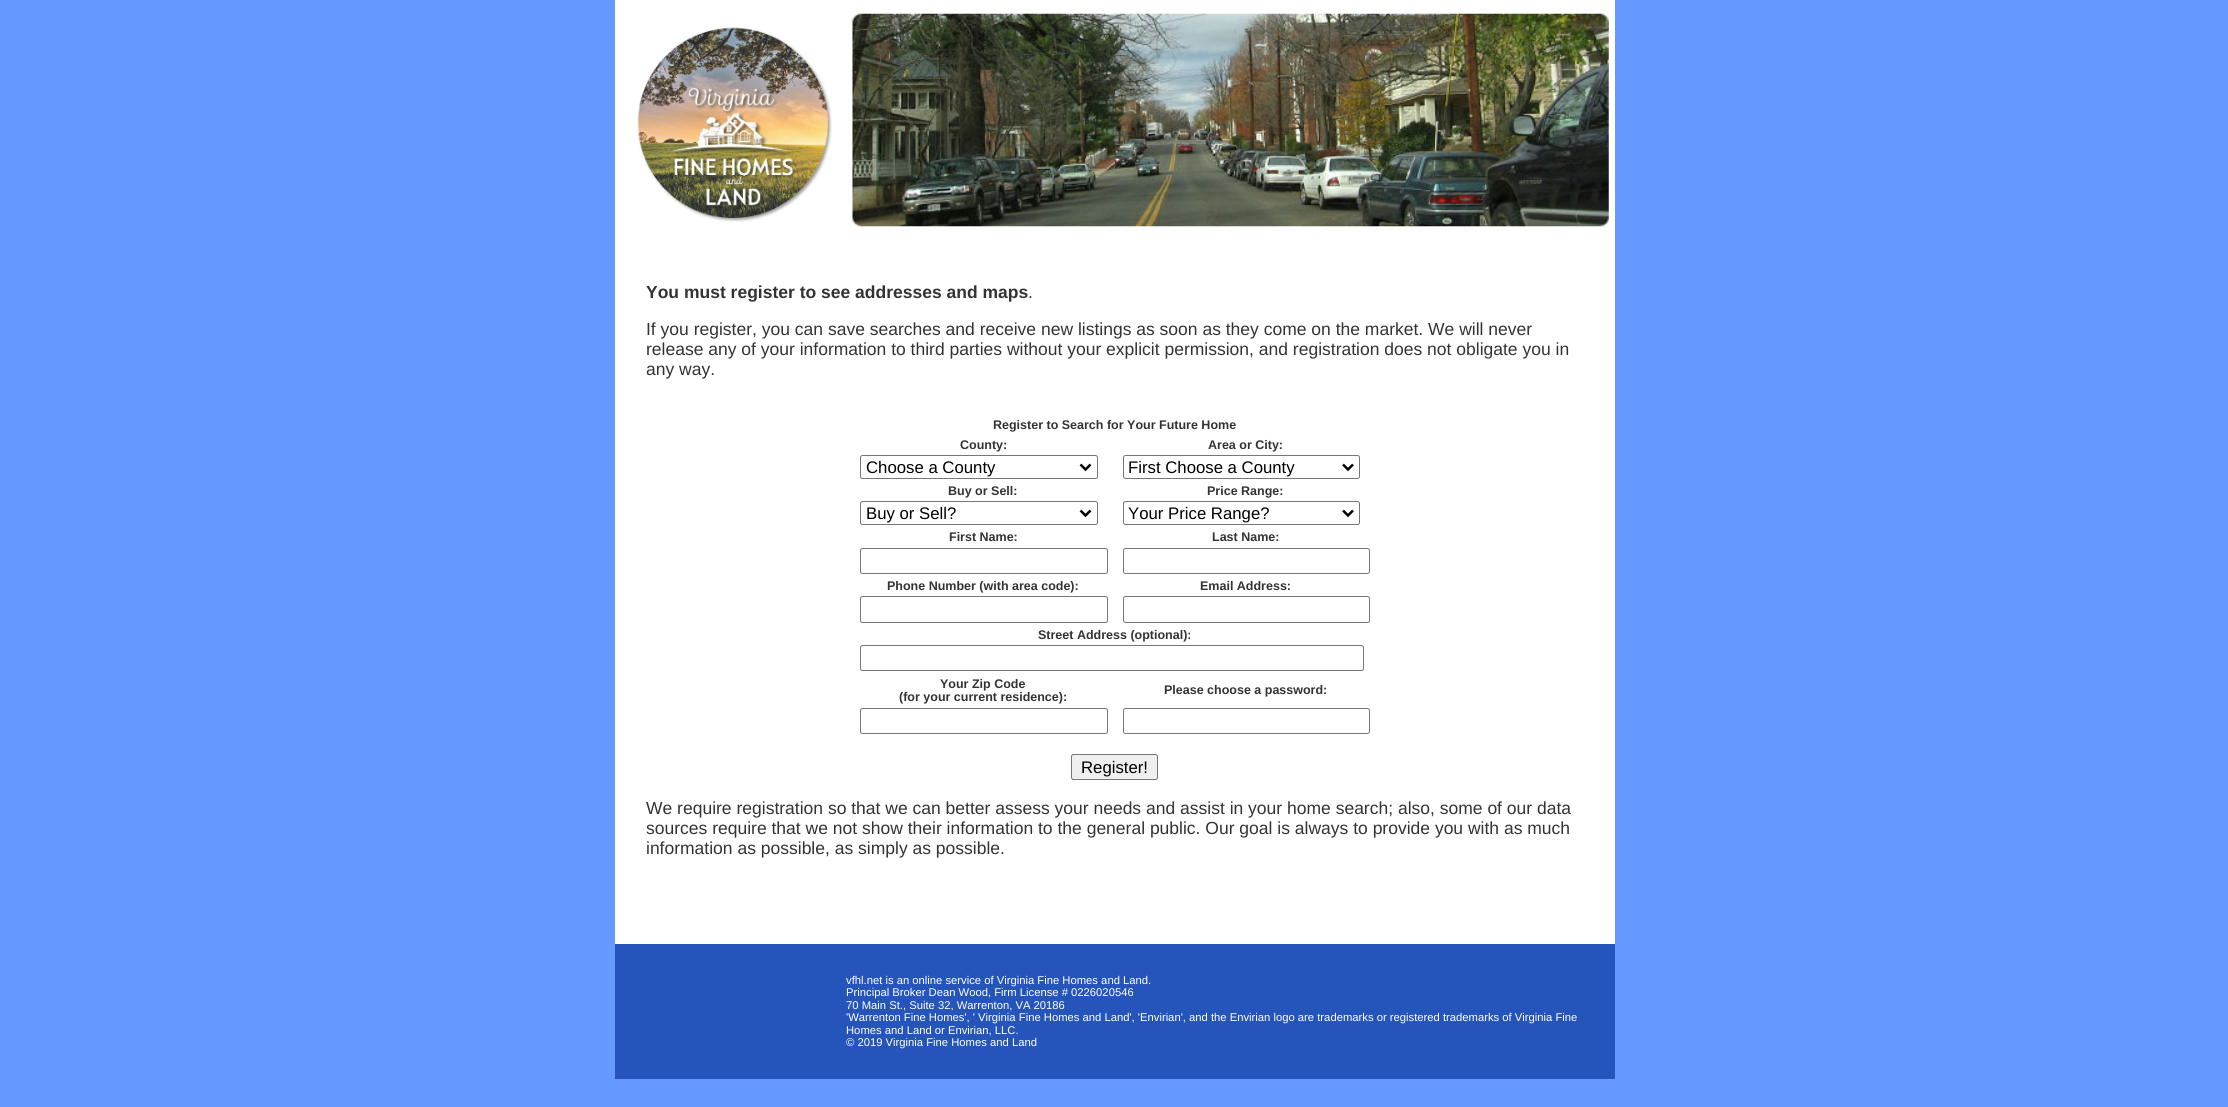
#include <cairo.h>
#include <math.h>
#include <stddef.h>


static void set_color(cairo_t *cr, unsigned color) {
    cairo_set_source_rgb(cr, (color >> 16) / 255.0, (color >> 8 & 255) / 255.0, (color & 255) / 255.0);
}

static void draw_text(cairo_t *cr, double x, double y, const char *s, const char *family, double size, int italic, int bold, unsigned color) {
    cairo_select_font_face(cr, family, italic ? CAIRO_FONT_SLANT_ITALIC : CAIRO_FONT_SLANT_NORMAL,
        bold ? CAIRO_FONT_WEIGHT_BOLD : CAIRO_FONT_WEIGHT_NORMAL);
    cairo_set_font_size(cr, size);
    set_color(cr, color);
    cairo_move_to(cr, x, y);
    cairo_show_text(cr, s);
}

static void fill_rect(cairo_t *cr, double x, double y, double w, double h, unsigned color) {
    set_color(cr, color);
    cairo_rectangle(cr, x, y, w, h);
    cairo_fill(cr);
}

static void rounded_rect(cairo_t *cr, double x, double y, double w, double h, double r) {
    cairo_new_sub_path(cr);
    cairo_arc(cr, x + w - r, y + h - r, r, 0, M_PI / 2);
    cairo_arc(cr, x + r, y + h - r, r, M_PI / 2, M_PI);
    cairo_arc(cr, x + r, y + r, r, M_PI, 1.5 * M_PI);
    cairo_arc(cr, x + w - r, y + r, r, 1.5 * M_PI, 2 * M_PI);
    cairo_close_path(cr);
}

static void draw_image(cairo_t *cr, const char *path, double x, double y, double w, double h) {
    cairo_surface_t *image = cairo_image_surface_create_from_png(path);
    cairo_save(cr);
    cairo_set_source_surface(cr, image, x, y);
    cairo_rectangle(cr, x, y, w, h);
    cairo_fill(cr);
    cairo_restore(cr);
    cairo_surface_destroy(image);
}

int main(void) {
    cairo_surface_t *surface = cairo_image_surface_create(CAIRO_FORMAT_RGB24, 2228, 1107);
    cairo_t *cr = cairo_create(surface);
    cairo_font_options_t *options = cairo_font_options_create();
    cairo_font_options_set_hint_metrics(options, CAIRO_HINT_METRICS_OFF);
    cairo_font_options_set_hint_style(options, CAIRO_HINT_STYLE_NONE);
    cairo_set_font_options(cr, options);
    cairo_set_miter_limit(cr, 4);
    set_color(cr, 0x6699FF);
    cairo_paint(cr);
    fill_rect(cr, 615, 0, 1000, 944, 0xFFFFFF);
    draw_image(cr, "assets/img1.png", 637, 27, 195, 195);
    draw_image(cr, "assets/img2.png", 852, 13, 757, 214);
    draw_text(cr, 646, 298, "You must register to see addresses and maps", "Liberation Sans", 17.5, 0, 1, 0x333333);
    draw_text(cr, 1028, 298, ".", "Liberation Sans", 17.5, 0, 0, 0x333333);
    draw_text(cr, 646, 335, "If you register, you can save searches and receive new listings as soon as they come on the market. We will never", "Liberation Sans", 17.5, 0, 0, 0x333333);
    draw_text(cr, 646, 355, "release any of your information to third parties without your explicit permission, and registration does not obligate you in", "Liberation Sans", 17.5, 0, 0, 0x333333);
    draw_text(cr, 646, 375, "any way.", "Liberation Sans", 17.5, 0, 0, 0x333333);
    draw_text(cr, 993, 429, "Register to Search for Your Future Home", "Liberation Sans", 12.5, 0, 1, 0x333333);
    draw_text(cr, 960, 449, "County:", "Liberation Sans", 12.5, 0, 1, 0x333333);
    draw_text(cr, 1208, 449, "Area or City:", "Liberation Sans", 12.5, 0, 1, 0x333333);
    rounded_rect(cr, 860.5, 455.5, 237, 23, 2);
    set_color(cr, 0x767676);
    cairo_set_line_width(cr, 1);
    cairo_stroke(cr);
    cairo_new_path(cr);
    cairo_move_to(cr, 1080.5, 464.5);
    cairo_line_to(cr, 1085.5, 469.5);
    cairo_line_to(cr, 1090.5, 464.5);
    set_color(cr, 0x000000);
    cairo_set_line_width(cr, 2.5);
    cairo_stroke(cr);
    draw_text(cr, 866, 473, "Choose a County", "Liberation Sans", 16.75, 0, 0, 0x000000);
    rounded_rect(cr, 1123.5, 455.5, 236, 23, 2);
    set_color(cr, 0x767676);
    cairo_set_line_width(cr, 1);
    cairo_stroke(cr);
    cairo_new_path(cr);
    cairo_move_to(cr, 1343, 464.5);
    cairo_line_to(cr, 1348, 469.5);
    cairo_line_to(cr, 1353, 464.5);
    set_color(cr, 0x000000);
    cairo_set_line_width(cr, 2.5);
    cairo_stroke(cr);
    draw_text(cr, 1128, 473, "First Choose a County", "Liberation Sans", 16.75, 0, 0, 0x000000);
    draw_text(cr, 948, 495, "Buy or Sell:", "Liberation Sans", 12.5, 0, 1, 0x333333);
    draw_text(cr, 1207, 495, "Price Range:", "Liberation Sans", 12.5, 0, 1, 0x333333);
    rounded_rect(cr, 860.5, 501.5, 237, 23, 2);
    set_color(cr, 0x767676);
    cairo_set_line_width(cr, 1);
    cairo_stroke(cr);
    cairo_new_path(cr);
    cairo_move_to(cr, 1080.5, 510.5);
    cairo_line_to(cr, 1085.5, 515.5);
    cairo_line_to(cr, 1090.5, 510.5);
    set_color(cr, 0x000000);
    cairo_set_line_width(cr, 2.5);
    cairo_stroke(cr);
    draw_text(cr, 866, 519, "Buy or Sell?", "Liberation Sans", 16.75, 0, 0, 0x000000);
    rounded_rect(cr, 1123.5, 501.5, 236, 23, 2);
    set_color(cr, 0x767676);
    cairo_set_line_width(cr, 1);
    cairo_stroke(cr);
    cairo_new_path(cr);
    cairo_move_to(cr, 1343, 510.5);
    cairo_line_to(cr, 1348, 515.5);
    cairo_line_to(cr, 1353, 510.5);
    set_color(cr, 0x000000);
    cairo_set_line_width(cr, 2.5);
    cairo_stroke(cr);
    draw_text(cr, 1128, 519, "Your Price Range?", "Liberation Sans", 16.75, 0, 0, 0x000000);
    draw_text(cr, 949, 541, "First Name:", "Liberation Sans", 12.5, 0, 1, 0x333333);
    draw_text(cr, 1212, 541, "Last Name:", "Liberation Sans", 12.5, 0, 1, 0x333333);
    rounded_rect(cr, 860.5, 548.5, 247, 25, 2);
    set_color(cr, 0x767676);
    cairo_set_line_width(cr, 1);
    cairo_stroke(cr);
    rounded_rect(cr, 1123.5, 548.5, 246, 25, 2);
    cairo_stroke(cr);
    draw_text(cr, 887, 590, "Phone Number (with area code):", "Liberation Sans", 12.5, 0, 1, 0x333333);
    draw_text(cr, 1200, 590, "Email Address:", "Liberation Sans", 12.5, 0, 1, 0x333333);
    rounded_rect(cr, 860.5, 596.5, 247, 26, 2);
    set_color(cr, 0x767676);
    cairo_stroke(cr);
    rounded_rect(cr, 1123.5, 596.5, 246, 26, 2);
    cairo_stroke(cr);
    draw_text(cr, 1038, 639, "Street Address (optional):", "Liberation Sans", 12.5, 0, 1, 0x333333);
    rounded_rect(cr, 860.5, 645.5, 503, 25, 2);
    set_color(cr, 0x767676);
    cairo_stroke(cr);
    draw_text(cr, 940, 688, "Your Zip Code", "Liberation Sans", 12.5, 0, 1, 0x333333);
    draw_text(cr, 899, 701, "(for your current residence):", "Liberation Sans", 12.5, 0, 1, 0x333333);
    draw_text(cr, 1164, 694, "Please choose a password:", "Liberation Sans", 12.5, 0, 1, 0x333333);
    rounded_rect(cr, 860.5, 708.5, 247, 25, 2);
    set_color(cr, 0x767676);
    cairo_stroke(cr);
    rounded_rect(cr, 1123.5, 708.5, 246, 25, 2);
    cairo_stroke(cr);
    set_color(cr, 0xEFEFEF);
    rounded_rect(cr, 1071.5, 754.5, 86, 25, 2);
    cairo_fill_preserve(cr);
    set_color(cr, 0x767676);
    cairo_stroke(cr);
    draw_text(cr, 1081, 773, "Register!", "Liberation Sans", 16.75, 0, 0, 0x000000);
    draw_text(cr, 646, 814, "We require registration so that we can better assess your needs and assist in your home search; also, some of our data", "Liberation Sans", 17.5, 0, 0, 0x333333);
    draw_text(cr, 646, 834, "sources require that we not show their information to the general public. Our goal is always to provide you with as much", "Liberation Sans", 17.5, 0, 0, 0x333333);
    draw_text(cr, 646, 854, "information as possible, as simply as possible.", "Liberation Sans", 17.5, 0, 0, 0x333333);
    fill_rect(cr, 615, 944, 1000, 135, 0x2555BB);
    draw_text(cr, 846, 984, "vfhl.net is an online service of Virginia Fine Homes and Land.", "Liberation Sans", 11.25, 0, 0, 0xFFFFFF);
    draw_text(cr, 846, 996, "Principal Broker Dean Wood, Firm License # 0226020546", "Liberation Sans", 11.25, 0, 0, 0xFFFFFF);
    draw_text(cr, 846, 1009, "70 Main St., Suite 32, Warrenton, VA 20186", "Liberation Sans", 11.25, 0, 0, 0xFFFFFF);
    draw_text(cr, 846, 1021, "'Warrenton Fine Homes', ' Virginia Fine Homes and Land', 'Envirian', and the Envirian logo are trademarks or registered trademarks of Virginia Fine", "Liberation Sans", 11.25, 0, 0, 0xFFFFFF);
    draw_text(cr, 846, 1034, "Homes and Land or Envirian, LLC.", "Liberation Sans", 11.25, 0, 0, 0xFFFFFF);
    draw_text(cr, 846, 1046, "© 2019 Virginia Fine Homes and Land", "Liberation Sans", 11.25, 0, 0, 0xFFFFFF);
    cairo_surface_write_to_png(surface, "output.png");
    cairo_font_options_destroy(options);
    cairo_destroy(cr);
    cairo_surface_destroy(surface);
    return 0;
}
